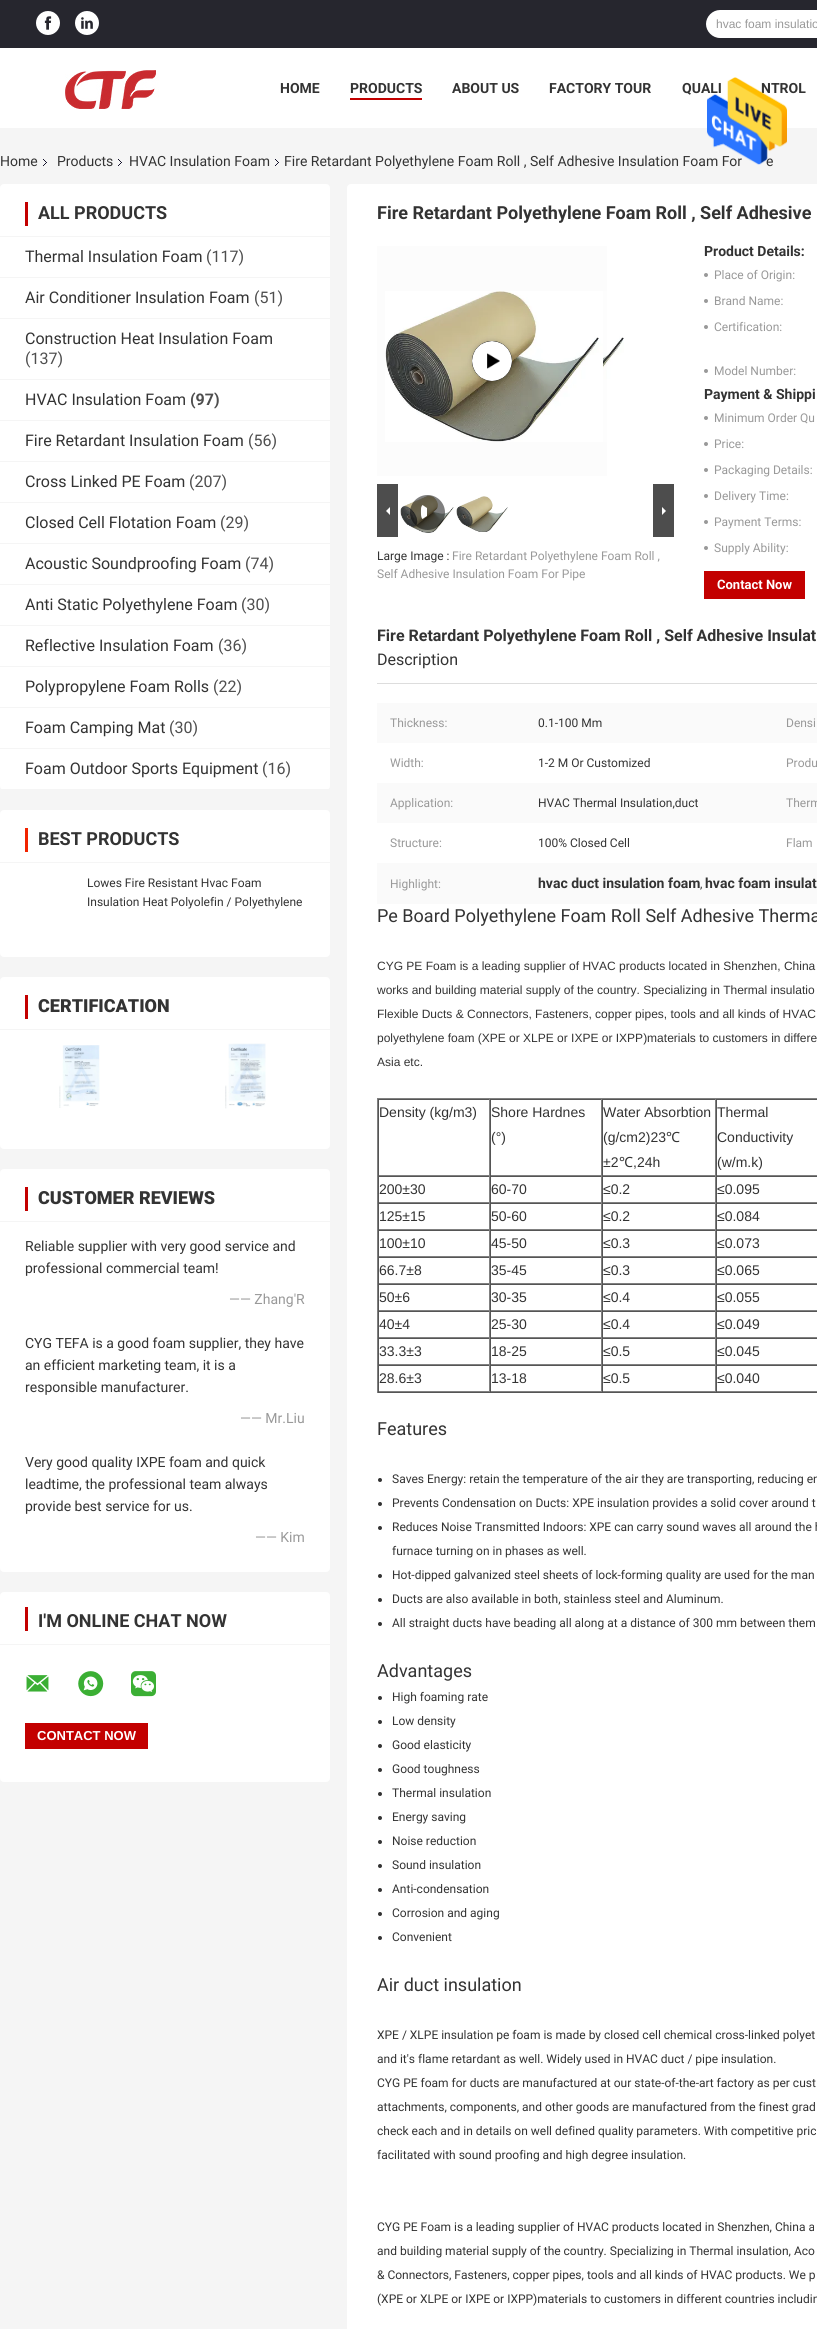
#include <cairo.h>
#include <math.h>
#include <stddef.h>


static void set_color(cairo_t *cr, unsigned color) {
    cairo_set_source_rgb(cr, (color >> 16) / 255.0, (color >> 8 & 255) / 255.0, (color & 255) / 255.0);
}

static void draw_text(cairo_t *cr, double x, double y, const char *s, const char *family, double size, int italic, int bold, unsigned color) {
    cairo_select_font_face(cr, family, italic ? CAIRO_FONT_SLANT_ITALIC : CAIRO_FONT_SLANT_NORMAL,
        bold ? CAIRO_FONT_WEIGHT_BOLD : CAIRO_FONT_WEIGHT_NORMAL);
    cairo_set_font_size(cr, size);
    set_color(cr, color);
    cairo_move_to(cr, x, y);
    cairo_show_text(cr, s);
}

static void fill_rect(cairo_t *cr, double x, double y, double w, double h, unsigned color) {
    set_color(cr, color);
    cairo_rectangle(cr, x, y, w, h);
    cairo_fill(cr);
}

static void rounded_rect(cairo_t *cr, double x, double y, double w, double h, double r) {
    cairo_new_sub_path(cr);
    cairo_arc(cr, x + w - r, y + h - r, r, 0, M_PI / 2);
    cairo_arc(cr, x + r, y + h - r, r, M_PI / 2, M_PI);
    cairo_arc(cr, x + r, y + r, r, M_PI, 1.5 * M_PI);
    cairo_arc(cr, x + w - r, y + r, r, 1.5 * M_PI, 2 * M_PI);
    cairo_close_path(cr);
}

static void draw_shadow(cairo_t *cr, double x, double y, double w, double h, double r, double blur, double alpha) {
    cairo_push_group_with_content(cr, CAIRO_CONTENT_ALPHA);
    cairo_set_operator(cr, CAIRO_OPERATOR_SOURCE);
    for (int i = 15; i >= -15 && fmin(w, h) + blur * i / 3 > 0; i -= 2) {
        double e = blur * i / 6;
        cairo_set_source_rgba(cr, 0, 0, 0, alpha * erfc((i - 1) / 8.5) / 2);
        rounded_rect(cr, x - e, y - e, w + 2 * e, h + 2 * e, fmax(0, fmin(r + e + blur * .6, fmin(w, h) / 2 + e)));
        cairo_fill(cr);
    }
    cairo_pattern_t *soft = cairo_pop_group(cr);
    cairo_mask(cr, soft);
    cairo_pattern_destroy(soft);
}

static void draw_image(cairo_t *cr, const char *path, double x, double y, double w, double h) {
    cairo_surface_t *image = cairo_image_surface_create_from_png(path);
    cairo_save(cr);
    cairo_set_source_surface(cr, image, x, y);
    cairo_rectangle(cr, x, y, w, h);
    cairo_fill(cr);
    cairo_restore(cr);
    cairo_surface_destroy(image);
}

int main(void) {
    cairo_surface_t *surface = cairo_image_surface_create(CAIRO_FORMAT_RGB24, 817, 2329);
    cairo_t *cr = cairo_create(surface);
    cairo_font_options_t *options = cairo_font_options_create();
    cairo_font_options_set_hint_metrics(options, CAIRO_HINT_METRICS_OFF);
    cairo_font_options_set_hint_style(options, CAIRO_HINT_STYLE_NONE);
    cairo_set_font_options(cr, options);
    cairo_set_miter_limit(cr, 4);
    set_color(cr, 0xF5F5F5);
    cairo_paint(cr);
    fill_rect(cr, 0, 48, 817, 80, 0xFFFFFF);
    fill_rect(cr, 0, 0, 817, 48, 0x26262E);
    draw_image(cr, "assets/img1.png", 36, 11, 24, 24);
    draw_image(cr, "assets/img2.png", 75, 11, 24, 24);
    set_color(cr, 0xFFFFFF);
    cairo_new_path(cr);
    cairo_move_to(cr, 720, 10);
    cairo_line_to(cr, 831, 10);
    cairo_line_to(cr, 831, 38);
    cairo_line_to(cr, 720, 38);
    cairo_curve_to(cr, 712.5, 38, 706, 31.5, 706, 24);
    cairo_curve_to(cr, 706, 16.5, 712.5, 10, 720, 10);
    cairo_close_path(cr);
    cairo_fill(cr);
    draw_text(cr, 716, 28, "hvac foam insulatio", "Liberation Sans", 12, 0, 0, 0x999999);
    draw_image(cr, "assets/img3.png", 65, 70, 94, 39);
    draw_text(cr, 280, 93, "HOME", "Roboto", 14, 0, 1, 0x333333);
    draw_text(cr, 350, 93, "PRODUCTS", "Roboto", 14, 0, 1, 0x333333);
    fill_rect(cr, 350, 98, 72, 2, 0xC30000);
    draw_text(cr, 452, 93, "ABOUT US", "Roboto", 14, 0, 1, 0x333333);
    draw_text(cr, 549, 93, "FACTORY TOUR", "Roboto", 14, 0, 1, 0x333333);
    draw_text(cr, 682, 93, "QUALI", "Roboto", 14, 0, 1, 0x333333);
    draw_text(cr, 761, 93, "NTROL", "Roboto", 14, 0, 1, 0x333333);
    draw_text(cr, 284, 166, "Fire Retardant Polyethylene Foam Roll , Self Adhesive Insulation Foam For", "Roboto", 14, 0, 0, 0x333333);
    draw_text(cr, 766, 166, "e", "Roboto", 14, 0, 0, 0x333333);
    draw_image(cr, "assets/img4.png", 707, 77, 80, 88);
    draw_text(cr, 0, 166, "Home", "Roboto", 14, 0, 0, 0x333333);
    draw_image(cr, "assets/img5.png", 43, 159, 4, 7);
    draw_text(cr, 57, 166, "Products", "Roboto", 14, 0, 0, 0x333333);
    draw_image(cr, "assets/img5.png", 118, 159, 4, 7);
    draw_text(cr, 129, 166, "HVAC Insulation Foam", "Roboto", 14, 0, 0, 0x333333);
    draw_image(cr, "assets/img5.png", 275, 159, 4, 7);
    set_color(cr, 0xFFFFFF);
    rounded_rect(cr, 0, 184, 330, 606, 4);
    cairo_fill(cr);
    fill_rect(cr, 0, 236, 330, 1, 0xF5F5F5);
    fill_rect(cr, 25, 202, 3, 24, 0xC30000);
    draw_text(cr, 38, 219, "ALL PRODUCTS", "Roboto", 18, 0, 1, 0x333333);
    fill_rect(cr, 0, 277, 330, 1, 0xF5F5F5);
    draw_text(cr, 25, 262, "Thermal Insulation Foam", "Roboto", 16, 0, 0, 0x333333);
    draw_text(cr, 206, 262, "(117)", "Roboto", 16, 0, 0, 0x4E4E4E);
    fill_rect(cr, 0, 318, 330, 1, 0xF5F5F5);
    draw_text(cr, 25, 303, "Air Conditioner Insulation Foam", "Roboto", 16, 0, 0, 0x333333);
    draw_text(cr, 254, 303, "(51)", "Roboto", 16, 0, 0, 0x4E4E4E);
    fill_rect(cr, 0, 379, 330, 1, 0xF5F5F5);
    draw_text(cr, 25, 344, "Construction Heat Insulation Foam", "Roboto", 16, 0, 0, 0x333333);
    draw_text(cr, 25, 364, "(137)", "Roboto", 16, 0, 0, 0x4E4E4E);
    fill_rect(cr, 0, 420, 330, 1, 0xF5F5F5);
    draw_text(cr, 25, 405, "HVAC Insulation Foam", "Roboto", 16, 0, 0, 0x333333);
    draw_text(cr, 190, 405, "(97)", "Roboto", 16, 0, 1, 0x4E4E4E);
    fill_rect(cr, 0, 461, 330, 1, 0xF5F5F5);
    draw_text(cr, 25, 446, "Fire Retardant Insulation Foam", "Roboto", 16, 0, 0, 0x333333);
    draw_text(cr, 248, 446, "(56)", "Roboto", 16, 0, 0, 0x4E4E4E);
    fill_rect(cr, 0, 502, 330, 1, 0xF5F5F5);
    draw_text(cr, 25, 487, "Cross Linked PE Foam", "Roboto", 16, 0, 0, 0x333333);
    draw_text(cr, 189, 487, "(207)", "Roboto", 16, 0, 0, 0x4E4E4E);
    fill_rect(cr, 0, 543, 330, 1, 0xF5F5F5);
    draw_text(cr, 25, 528, "Closed Cell Flotation Foam", "Roboto", 16, 0, 0, 0x333333);
    draw_text(cr, 220, 528, "(29)", "Roboto", 16, 0, 0, 0x4E4E4E);
    fill_rect(cr, 0, 584, 330, 1, 0xF5F5F5);
    draw_text(cr, 25, 569, "Acoustic Soundproofing Foam", "Roboto", 16, 0, 0, 0x333333);
    draw_text(cr, 245, 569, "(74)", "Roboto", 16, 0, 0, 0x4E4E4E);
    fill_rect(cr, 0, 625, 330, 1, 0xF5F5F5);
    draw_text(cr, 25, 610, "Anti Static Polyethylene Foam", "Roboto", 16, 0, 0, 0x333333);
    draw_text(cr, 241, 610, "(30)", "Roboto", 16, 0, 0, 0x4E4E4E);
    fill_rect(cr, 0, 666, 330, 1, 0xF5F5F5);
    draw_text(cr, 25, 651, "Reflective Insulation Foam", "Roboto", 16, 0, 0, 0x333333);
    draw_text(cr, 218, 651, "(36)", "Roboto", 16, 0, 0, 0x4E4E4E);
    fill_rect(cr, 0, 707, 330, 1, 0xF5F5F5);
    draw_text(cr, 25, 692, "Polypropylene Foam Rolls", "Roboto", 16, 0, 0, 0x333333);
    draw_text(cr, 213, 692, "(22)", "Roboto", 16, 0, 0, 0x4E4E4E);
    fill_rect(cr, 0, 748, 330, 1, 0xF5F5F5);
    draw_text(cr, 25, 733, "Foam Camping Mat", "Roboto", 16, 0, 0, 0x333333);
    draw_text(cr, 169, 733, "(30)", "Roboto", 16, 0, 0, 0x4E4E4E);
    fill_rect(cr, 0, 789, 330, 1, 0xF5F5F5);
    draw_text(cr, 25, 774, "Foam Outdoor Sports Equipment", "Roboto", 16, 0, 0, 0x333333);
    draw_text(cr, 262, 774, "(16)", "Roboto", 16, 0, 0, 0x4E4E4E);
    set_color(cr, 0xFFFFFF);
    rounded_rect(cr, 0, 810, 330, 147, 4);
    cairo_fill(cr);
    fill_rect(cr, 0, 862, 330, 1, 0xF5F5F5);
    fill_rect(cr, 25, 828, 3, 24, 0xF12300);
    draw_text(cr, 38, 845, "BEST PRODUCTS", "Roboto", 18, 0, 1, 0x333333);
    draw_text(cr, 87, 887, "Lowes Fire Resistant Hvac Foam", "Roboto", 12, 0, 0, 0x333333);
    draw_text(cr, 87, 906, "Insulation Heat Polyolefin / Polyethylene", "Roboto", 12, 0, 0, 0x333333);
    set_color(cr, 0xFFFFFF);
    rounded_rect(cr, 0, 977, 330, 172, 4);
    cairo_fill(cr);
    fill_rect(cr, 0, 1029, 330, 1, 0xF5F5F5);
    fill_rect(cr, 25, 995, 3, 24, 0xC30000);
    draw_text(cr, 38, 1012, "CERTIFICATION", "Roboto Black", 18, 0, 0, 0x333333);
    draw_image(cr, "assets/img6.png", 59, 1045, 41, 63);
    draw_image(cr, "assets/img7.png", 225, 1043, 41, 66);
    set_color(cr, 0xFFFFFF);
    rounded_rect(cr, 0, 1169, 330, 403, 4);
    cairo_fill(cr);
    fill_rect(cr, 0, 1221, 330, 1, 0xF5F5F5);
    fill_rect(cr, 25, 1187, 3, 24, 0xC30000);
    draw_text(cr, 38, 1204, "CUSTOMER REVIEWS", "Roboto Black", 18, 0, 0, 0x333333);
    draw_text(cr, 25, 1251, "Reliable supplier with very good service and", "Roboto", 14, 0, 0, 0x333333);
    draw_text(cr, 25, 1273, "professional commercial team!", "Roboto", 14, 0, 0, 0x333333);
    draw_text(cr, 229, 1304, "—— Zhang'R", "Roboto", 14, 0, 0, 0x999999);
    draw_text(cr, 25, 1348, "CYG TEFA is a good foam supplier, they have", "Roboto", 14, 0, 0, 0x333333);
    draw_text(cr, 25, 1370, "an efficient marketing team, it is a", "Roboto", 14, 0, 0, 0x333333);
    draw_text(cr, 25, 1392, "responsible manufacturer.", "Roboto", 14, 0, 0, 0x333333);
    draw_text(cr, 240, 1423, "—— Mr.Liu", "Roboto", 14, 0, 0, 0x999999);
    draw_text(cr, 25, 1467, "Very good quality IXPE foam and quick", "Roboto", 14, 0, 0, 0x333333);
    draw_text(cr, 25, 1489, "leadtime, the professional team always", "Roboto", 14, 0, 0, 0x333333);
    draw_text(cr, 25, 1511, "provide best service for us.", "Roboto", 14, 0, 0, 0x333333);
    draw_text(cr, 255, 1542, "—— Kim", "Roboto", 14, 0, 0, 0x999999);
    set_color(cr, 0xFFFFFF);
    rounded_rect(cr, 0, 1592, 330, 190, 4);
    cairo_fill(cr);
    fill_rect(cr, 0, 1644, 330, 1, 0xF5F5F5);
    fill_rect(cr, 25, 1607, 3, 24, 0xC30000);
    draw_text(cr, 38, 1627, "I'M ONLINE CHAT NOW", "Roboto", 18, 0, 1, 0x333333);
    draw_image(cr, "assets/img8.png", 26, 1675, 23, 17);
    draw_image(cr, "assets/img9.png", 78, 1671, 26, 26);
    draw_image(cr, "assets/img10.png", 131, 1671, 25, 26);
    fill_rect(cr, 25, 1723, 123, 26, 0xC30000);
    draw_text(cr, 37, 1740, "CONTACT NOW", "Liberation Sans", 13, 0, 1, 0xFFFFFF);
    rounded_rect(cr, 347, 184, 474, 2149, 4);
    cairo_fill(cr);
    fill_rect(cr, 377, 246, 230, 230, 0xFCFCFC);
    draw_text(cr, 377, 219, "Fire Retardant Polyethylene Foam Roll , Self Adhesive", "Roboto", 18, 0, 1, 0x333333);
    draw_image(cr, "assets/img11.png", 385, 291, 218, 151);
    set_color(cr, 0x000000);
    draw_shadow(cr, 472, 341, 40, 40, 20, 2.5, 0.2);
    set_color(cr, 0x000000);
    cairo_arc(cr, 492, 361, 20, 0, 2 * M_PI);
    cairo_fill(cr);
    draw_image(cr, "assets/img12.png", 472, 341, 40, 40);
    draw_image(cr, "assets/img13.png", 603, 291, 21, 151);
    fill_rect(cr, 377, 484, 21, 53, 0x4D4D4D);
    set_color(cr, 0xFFFFFF);
    cairo_new_path(cr);
    cairo_move_to(cr, 390, 507);
    cairo_line_to(cr, 390, 515);
    cairo_line_to(cr, 386, 511);
    cairo_close_path(cr);
    cairo_fill(cr);
    draw_image(cr, "assets/img14.png", 400, 495, 54, 38);
    cairo_set_source_rgba(cr, 0, 0, 0, 0.5);
    cairo_arc(cr, 427.5, 512.5, 17.5, 0, 2 * M_PI);
    cairo_fill(cr);
    set_color(cr, 0xFFFFFF);
    cairo_new_path(cr);
    cairo_move_to(cr, 421, 509);
    cairo_curve_to(cr, 421, 507.5, 421.5, 506, 422.5, 505);
    cairo_line_to(cr, 427, 508);
    cairo_line_to(cr, 427, 516);
    cairo_line_to(cr, 422.5, 519);
    cairo_curve_to(cr, 420.5, 517.5, 421, 511.5, 421, 509);
    cairo_close_path(cr);
    cairo_fill(cr);
    draw_image(cr, "assets/img15.png", 456, 496, 52, 36);
    fill_rect(cr, 653, 484, 21, 53, 0x4D4D4D);
    set_color(cr, 0xFFFFFF);
    cairo_new_path(cr);
    cairo_move_to(cr, 662, 515);
    cairo_line_to(cr, 662, 507);
    cairo_line_to(cr, 666, 511);
    cairo_close_path(cr);
    cairo_fill(cr);
    draw_text(cr, 377, 560, "Large Image :", "Roboto", 12, 0, 0, 0x333333);
    draw_text(cr, 452, 560, "Fire Retardant Polyethylene Foam Roll ,", "Roboto", 12, 0, 0, 0x999999);
    draw_text(cr, 377, 578, "Self Adhesive Insulation Foam For Pipe", "Roboto", 12, 0, 0, 0x999999);
    draw_text(cr, 704, 256, "Product Details:", "Roboto", 14, 0, 1, 0x333333);
    set_color(cr, 0x999999);
    cairo_new_path(cr);
    cairo_arc(cr, 706, 275, 2, 0, 2 * M_PI);
    cairo_fill(cr);
    draw_text(cr, 714, 279, "Place of Origin:", "Roboto", 12, 0, 0, 0x999999);
    cairo_new_path(cr);
    cairo_arc(cr, 706, 301, 2, 0, 2 * M_PI);
    cairo_fill(cr);
    draw_text(cr, 714, 305, "Brand Name:", "Roboto", 12, 0, 0, 0x999999);
    cairo_new_path(cr);
    cairo_arc(cr, 706, 327, 2, 0, 2 * M_PI);
    cairo_fill(cr);
    draw_text(cr, 714, 331, "Certification:", "Roboto", 12, 0, 0, 0x999999);
    cairo_new_path(cr);
    cairo_arc(cr, 706, 371, 2, 0, 2 * M_PI);
    cairo_fill(cr);
    draw_text(cr, 714, 375, "Model Number:", "Roboto", 12, 0, 0, 0x999999);
    draw_text(cr, 704, 399, "Payment & Shippi", "Roboto", 14, 0, 1, 0x333333);
    set_color(cr, 0x999999);
    cairo_new_path(cr);
    cairo_arc(cr, 706, 418, 2, 0, 2 * M_PI);
    cairo_fill(cr);
    draw_text(cr, 714, 422, "Minimum Order Qu", "Roboto", 12, 0, 0, 0x999999);
    cairo_new_path(cr);
    cairo_arc(cr, 706, 444, 2, 0, 2 * M_PI);
    cairo_fill(cr);
    draw_text(cr, 714, 448, "Price:", "Roboto", 12, 0, 0, 0x999999);
    cairo_new_path(cr);
    cairo_arc(cr, 706, 470, 2, 0, 2 * M_PI);
    cairo_fill(cr);
    draw_text(cr, 714, 474, "Packaging Details:", "Roboto", 12, 0, 0, 0x999999);
    cairo_new_path(cr);
    cairo_arc(cr, 706, 496, 2, 0, 2 * M_PI);
    cairo_fill(cr);
    draw_text(cr, 714, 500, "Delivery Time:", "Roboto", 12, 0, 0, 0x999999);
    cairo_new_path(cr);
    cairo_arc(cr, 706, 522, 2, 0, 2 * M_PI);
    cairo_fill(cr);
    draw_text(cr, 714, 526, "Payment Terms:", "Roboto", 12, 0, 0, 0x999999);
    cairo_new_path(cr);
    cairo_arc(cr, 706, 548, 2, 0, 2 * M_PI);
    cairo_fill(cr);
    draw_text(cr, 714, 552, "Supply Ability:", "Roboto", 12, 0, 0, 0x999999);
    fill_rect(cr, 704, 571, 101, 28, 0xC30000);
    draw_text(cr, 717, 589, "Contact Now", "Roboto", 13, 0, 1, 0xFFFFFF);
    fill_rect(cr, 377, 683, 440, 1, 0xDDDDDD);
    draw_text(cr, 377, 641, "Fire Retardant Polyethylene Foam Roll , Self Adhesive Insulat", "Roboto", 16, 0, 1, 0x333333);
    draw_text(cr, 377, 665, "Description", "Roboto", 16, 0, 0, 0x333333);
    fill_rect(cr, 377, 703, 440, 40, 0xFAFAFA);
    draw_text(cr, 390, 727, "Thickness:", "Roboto", 12, 0, 0, 0x999999);
    draw_text(cr, 538, 727, "0.1-100 Mm", "Roboto", 12, 0, 0, 0x333333);
    draw_text(cr, 786, 727, "Densi", "Roboto", 12, 0, 0, 0x999999);
    draw_text(cr, 390, 767, "Width:", "Roboto", 12, 0, 0, 0x999999);
    draw_text(cr, 538, 767, "1-2 M Or Customized", "Roboto", 12, 0, 0, 0x333333);
    draw_text(cr, 786, 767, "Produ", "Roboto", 12, 0, 0, 0x999999);
    fill_rect(cr, 377, 783, 440, 40, 0xFAFAFA);
    draw_text(cr, 390, 807, "Application:", "Roboto", 12, 0, 0, 0x999999);
    draw_text(cr, 538, 807, "HVAC Thermal Insulation,duct", "Roboto", 12, 0, 0, 0x333333);
    draw_text(cr, 786, 807, "Therm", "Roboto", 12, 0, 0, 0x999999);
    draw_text(cr, 390, 847, "Structure:", "Roboto", 12, 0, 0, 0x999999);
    draw_text(cr, 538, 847, "100% Closed Cell", "Roboto", 12, 0, 0, 0x333333);
    draw_text(cr, 786, 847, "Flam", "Roboto", 12, 0, 0, 0x999999);
    fill_rect(cr, 377, 863, 440, 41, 0xFAFAFA);
    draw_text(cr, 390, 888, "Highlight:", "Roboto", 12, 0, 0, 0x999999);
    draw_text(cr, 538, 888, "hvac duct insulation foam", "Roboto", 14, 0, 1, 0x333333);
    draw_text(cr, 700, 888, ",", "Roboto", 12, 0, 0, 0x333333);
    draw_text(cr, 705, 888, "hvac foam insulat", "Roboto", 14, 0, 1, 0x333333);
    draw_text(cr, 377, 922, "Pe Board Polyethylene Foam Roll Self Adhesive Therma", "Roboto", 18, 0, 0, 0x333333);
    draw_text(cr, 377, 970, "CYG PE Foam is a leading supplier of HVAC products located in Shenzhen, China", "Liberation Sans", 12, 0, 0, 0x333333);
    draw_text(cr, 377, 994, "works and building material supply of the country. Specializing in Thermal insulatio", "Liberation Sans", 12, 0, 0, 0x333333);
    draw_text(cr, 377, 1018, "Flexible Ducts & Connectors, Fasteners, copper pipes, tools and all kinds of HVAC", "Liberation Sans", 12, 0, 0, 0x333333);
    draw_text(cr, 377, 1042, "polyethylene foam (XPE or XLPE or IXPE or IXPP)materials to customers in differe", "Liberation Sans", 12, 0, 0, 0x333333);
    draw_text(cr, 377, 1066, "Asia etc.", "Liberation Sans", 12, 0, 0, 0x333333);
    fill_rect(cr, 377, 1098, 440, 1, 0x808080);
    fill_rect(cr, 377, 1392, 440, 1, 0x555555);
    fill_rect(cr, 377, 1098, 1, 295, 0x808080);
    fill_rect(cr, 378, 1099, 439, 1, 0x555555);
    fill_rect(cr, 489, 1099, 1, 77, 0x808080);
    fill_rect(cr, 378, 1175, 112, 1, 0x808080);
    fill_rect(cr, 378, 1099, 1, 77, 0x555555);
    draw_text(cr, 379, 1117, "Density (kg/m3)", "Liberation Sans", 14, 0, 0, 0x333333);
    fill_rect(cr, 601, 1099, 1, 77, 0x808080);
    fill_rect(cr, 490, 1175, 112, 1, 0x808080);
    fill_rect(cr, 490, 1099, 1, 77, 0x555555);
    draw_text(cr, 491, 1117, "Shore Hardnes", "Liberation Sans", 14, 0, 0, 0x333333);
    draw_text(cr, 491, 1142, "(°)", "Liberation Sans", 14, 0, 0, 0x333333);
    fill_rect(cr, 715, 1099, 1, 77, 0x808080);
    fill_rect(cr, 602, 1175, 215, 1, 0x808080);
    fill_rect(cr, 602, 1099, 1, 77, 0x555555);
    draw_text(cr, 603, 1117, "Water Absorbtion", "Liberation Sans", 14, 0, 0, 0x333333);
    draw_text(cr, 603, 1142, "(g/cm2)23", "Liberation Sans", 14, 0, 0, 0x333333);
    draw_text(cr, 666, 1142, "℃", "Noto Sans", 14, 0, 0, 0x333333);
    draw_text(cr, 603, 1167, "±2", "Liberation Sans", 14, 0, 0, 0x333333);
    draw_text(cr, 619, 1167, "℃", "Noto Sans", 14, 0, 0, 0x333333);
    draw_text(cr, 633, 1167, ",24h", "Liberation Sans", 14, 0, 0, 0x333333);
    fill_rect(cr, 716, 1099, 1, 77, 0x555555);
    draw_text(cr, 717, 1117, "Thermal", "Liberation Sans", 14, 0, 0, 0x333333);
    draw_text(cr, 717, 1142, "Conductivity", "Liberation Sans", 14, 0, 0, 0x333333);
    draw_text(cr, 717, 1167, "(w/m.k)", "Liberation Sans", 14, 0, 0, 0x333333);
    fill_rect(cr, 378, 1176, 439, 1, 0x555555);
    fill_rect(cr, 489, 1176, 1, 27, 0x808080);
    fill_rect(cr, 378, 1202, 112, 1, 0x808080);
    fill_rect(cr, 378, 1176, 1, 27, 0x555555);
    draw_text(cr, 379, 1194, "200±30", "Liberation Sans", 14, 0, 0, 0x333333);
    fill_rect(cr, 601, 1176, 1, 27, 0x808080);
    fill_rect(cr, 490, 1202, 112, 1, 0x808080);
    fill_rect(cr, 490, 1176, 1, 27, 0x555555);
    draw_text(cr, 491, 1194, "60-70", "Liberation Sans", 14, 0, 0, 0x333333);
    fill_rect(cr, 715, 1176, 1, 27, 0x808080);
    fill_rect(cr, 602, 1202, 215, 1, 0x808080);
    fill_rect(cr, 602, 1176, 1, 27, 0x555555);
    draw_text(cr, 603, 1194, "≤0.2", "Liberation Sans", 14, 0, 0, 0x333333);
    fill_rect(cr, 716, 1176, 1, 27, 0x555555);
    draw_text(cr, 717, 1194, "≤0.095", "Liberation Sans", 14, 0, 0, 0x333333);
    fill_rect(cr, 378, 1203, 439, 1, 0x555555);
    fill_rect(cr, 489, 1203, 1, 27, 0x808080);
    fill_rect(cr, 378, 1229, 112, 1, 0x808080);
    fill_rect(cr, 378, 1203, 1, 27, 0x555555);
    draw_text(cr, 379, 1221, "125±15", "Liberation Sans", 14, 0, 0, 0x333333);
    fill_rect(cr, 601, 1203, 1, 27, 0x808080);
    fill_rect(cr, 490, 1229, 112, 1, 0x808080);
    fill_rect(cr, 490, 1203, 1, 27, 0x555555);
    draw_text(cr, 491, 1221, "50-60", "Liberation Sans", 14, 0, 0, 0x333333);
    fill_rect(cr, 715, 1203, 1, 27, 0x808080);
    fill_rect(cr, 602, 1229, 215, 1, 0x808080);
    fill_rect(cr, 602, 1203, 1, 27, 0x555555);
    draw_text(cr, 603, 1221, "≤0.2", "Liberation Sans", 14, 0, 0, 0x333333);
    fill_rect(cr, 716, 1203, 1, 27, 0x555555);
    draw_text(cr, 717, 1221, "≤0.084", "Liberation Sans", 14, 0, 0, 0x333333);
    fill_rect(cr, 378, 1230, 439, 1, 0x555555);
    fill_rect(cr, 489, 1230, 1, 27, 0x808080);
    fill_rect(cr, 378, 1256, 112, 1, 0x808080);
    fill_rect(cr, 378, 1230, 1, 27, 0x555555);
    draw_text(cr, 379, 1248, "100±10", "Liberation Sans", 14, 0, 0, 0x333333);
    fill_rect(cr, 601, 1230, 1, 27, 0x808080);
    fill_rect(cr, 490, 1256, 112, 1, 0x808080);
    fill_rect(cr, 490, 1230, 1, 27, 0x555555);
    draw_text(cr, 491, 1248, "45-50", "Liberation Sans", 14, 0, 0, 0x333333);
    fill_rect(cr, 715, 1230, 1, 27, 0x808080);
    fill_rect(cr, 602, 1256, 215, 1, 0x808080);
    fill_rect(cr, 602, 1230, 1, 27, 0x555555);
    draw_text(cr, 603, 1248, "≤0.3", "Liberation Sans", 14, 0, 0, 0x333333);
    fill_rect(cr, 716, 1230, 1, 27, 0x555555);
    draw_text(cr, 717, 1248, "≤0.073", "Liberation Sans", 14, 0, 0, 0x333333);
    fill_rect(cr, 378, 1257, 439, 1, 0x555555);
    fill_rect(cr, 489, 1257, 1, 27, 0x808080);
    fill_rect(cr, 378, 1283, 112, 1, 0x808080);
    fill_rect(cr, 378, 1257, 1, 27, 0x555555);
    draw_text(cr, 379, 1275, "66.7±8", "Liberation Sans", 14, 0, 0, 0x333333);
    fill_rect(cr, 601, 1257, 1, 27, 0x808080);
    fill_rect(cr, 490, 1283, 112, 1, 0x808080);
    fill_rect(cr, 490, 1257, 1, 27, 0x555555);
    draw_text(cr, 491, 1275, "35-45", "Liberation Sans", 14, 0, 0, 0x333333);
    fill_rect(cr, 715, 1257, 1, 27, 0x808080);
    fill_rect(cr, 602, 1283, 215, 1, 0x808080);
    fill_rect(cr, 602, 1257, 1, 27, 0x555555);
    draw_text(cr, 603, 1275, "≤0.3", "Liberation Sans", 14, 0, 0, 0x333333);
    fill_rect(cr, 716, 1257, 1, 27, 0x555555);
    draw_text(cr, 717, 1275, "≤0.065", "Liberation Sans", 14, 0, 0, 0x333333);
    fill_rect(cr, 378, 1284, 439, 1, 0x555555);
    fill_rect(cr, 489, 1284, 1, 27, 0x808080);
    fill_rect(cr, 378, 1310, 112, 1, 0x808080);
    fill_rect(cr, 378, 1284, 1, 27, 0x555555);
    draw_text(cr, 379, 1302, "50±6", "Liberation Sans", 14, 0, 0, 0x333333);
    fill_rect(cr, 601, 1284, 1, 27, 0x808080);
    fill_rect(cr, 490, 1310, 112, 1, 0x808080);
    fill_rect(cr, 490, 1284, 1, 27, 0x555555);
    draw_text(cr, 491, 1302, "30-35", "Liberation Sans", 14, 0, 0, 0x333333);
    fill_rect(cr, 715, 1284, 1, 27, 0x808080);
    fill_rect(cr, 602, 1310, 215, 1, 0x808080);
    fill_rect(cr, 602, 1284, 1, 27, 0x555555);
    draw_text(cr, 603, 1302, "≤0.4", "Liberation Sans", 14, 0, 0, 0x333333);
    fill_rect(cr, 716, 1284, 1, 27, 0x555555);
    draw_text(cr, 717, 1302, "≤0.055", "Liberation Sans", 14, 0, 0, 0x333333);
    fill_rect(cr, 378, 1311, 439, 1, 0x555555);
    fill_rect(cr, 489, 1311, 1, 27, 0x808080);
    fill_rect(cr, 378, 1337, 112, 1, 0x808080);
    fill_rect(cr, 378, 1311, 1, 27, 0x555555);
    draw_text(cr, 379, 1329, "40±4", "Liberation Sans", 14, 0, 0, 0x333333);
    fill_rect(cr, 601, 1311, 1, 27, 0x808080);
    fill_rect(cr, 490, 1337, 112, 1, 0x808080);
    fill_rect(cr, 490, 1311, 1, 27, 0x555555);
    draw_text(cr, 491, 1329, "25-30", "Liberation Sans", 14, 0, 0, 0x333333);
    fill_rect(cr, 715, 1311, 1, 27, 0x808080);
    fill_rect(cr, 602, 1337, 215, 1, 0x808080);
    fill_rect(cr, 602, 1311, 1, 27, 0x555555);
    draw_text(cr, 603, 1329, "≤0.4", "Liberation Sans", 14, 0, 0, 0x333333);
    fill_rect(cr, 716, 1311, 1, 27, 0x555555);
    draw_text(cr, 717, 1329, "≤0.049", "Liberation Sans", 14, 0, 0, 0x333333);
    fill_rect(cr, 378, 1338, 439, 1, 0x555555);
    fill_rect(cr, 489, 1338, 1, 27, 0x808080);
    fill_rect(cr, 378, 1364, 112, 1, 0x808080);
    fill_rect(cr, 378, 1338, 1, 27, 0x555555);
    draw_text(cr, 379, 1356, "33.3±3", "Liberation Sans", 14, 0, 0, 0x333333);
    fill_rect(cr, 601, 1338, 1, 27, 0x808080);
    fill_rect(cr, 490, 1364, 112, 1, 0x808080);
    fill_rect(cr, 490, 1338, 1, 27, 0x555555);
    draw_text(cr, 491, 1356, "18-25", "Liberation Sans", 14, 0, 0, 0x333333);
    fill_rect(cr, 715, 1338, 1, 27, 0x808080);
    fill_rect(cr, 602, 1364, 215, 1, 0x808080);
    fill_rect(cr, 602, 1338, 1, 27, 0x555555);
    draw_text(cr, 603, 1356, "≤0.5", "Liberation Sans", 14, 0, 0, 0x333333);
    fill_rect(cr, 716, 1338, 1, 27, 0x555555);
    draw_text(cr, 717, 1356, "≤0.045", "Liberation Sans", 14, 0, 0, 0x333333);
    fill_rect(cr, 378, 1365, 439, 1, 0x555555);
    fill_rect(cr, 489, 1365, 1, 27, 0x808080);
    fill_rect(cr, 378, 1391, 112, 1, 0x808080);
    fill_rect(cr, 378, 1365, 1, 27, 0x555555);
    draw_text(cr, 379, 1383, "28.6±3", "Liberation Sans", 14, 0, 0, 0x333333);
    fill_rect(cr, 601, 1365, 1, 27, 0x808080);
    fill_rect(cr, 490, 1391, 112, 1, 0x808080);
    fill_rect(cr, 490, 1365, 1, 27, 0x555555);
    draw_text(cr, 491, 1383, "13-18", "Liberation Sans", 14, 0, 0, 0x333333);
    fill_rect(cr, 715, 1365, 1, 27, 0x808080);
    fill_rect(cr, 602, 1391, 215, 1, 0x808080);
    fill_rect(cr, 602, 1365, 1, 27, 0x555555);
    draw_text(cr, 603, 1383, "≤0.5", "Liberation Sans", 14, 0, 0, 0x333333);
    fill_rect(cr, 716, 1365, 1, 27, 0x555555);
    draw_text(cr, 717, 1383, "≤0.040", "Liberation Sans", 14, 0, 0, 0x333333);
    draw_text(cr, 377, 1435, "Features", "Roboto", 18, 0, 0, 0x333333);
    cairo_new_path(cr);
    cairo_arc(cr, 380, 1480, 2, 0, 2 * M_PI);
    cairo_fill(cr);
    draw_text(cr, 392, 1483, "Saves Energy: retain the temperature of the air they are transporting, reducing en", "Roboto", 12, 0, 0, 0x333333);
    cairo_new_path(cr);
    cairo_arc(cr, 380, 1504, 2, 0, 2 * M_PI);
    cairo_fill(cr);
    draw_text(cr, 392, 1507, "Prevents Condensation on Ducts: XPE insulation provides a solid cover around t", "Roboto", 12, 0, 0, 0x333333);
    cairo_new_path(cr);
    cairo_arc(cr, 380, 1528, 2, 0, 2 * M_PI);
    cairo_fill(cr);
    draw_text(cr, 392, 1531, "Reduces Noise Transmitted Indoors: XPE can carry sound waves all around the h", "Roboto", 12, 0, 0, 0x333333);
    draw_text(cr, 392, 1555, "furnace turning on in phases as well.", "Roboto", 12, 0, 0, 0x333333);
    cairo_new_path(cr);
    cairo_arc(cr, 380, 1576, 2, 0, 2 * M_PI);
    cairo_fill(cr);
    draw_text(cr, 392, 1579, "Hot-dipped galvanized steel sheets of lock-forming quality are used for the man", "Roboto", 12, 0, 0, 0x333333);
    cairo_new_path(cr);
    cairo_arc(cr, 380, 1600, 2, 0, 2 * M_PI);
    cairo_fill(cr);
    draw_text(cr, 392, 1603, "Ducts are also available in both, stainless steel and Aluminum.", "Roboto", 12, 0, 0, 0x333333);
    cairo_new_path(cr);
    cairo_arc(cr, 380, 1624, 2, 0, 2 * M_PI);
    cairo_fill(cr);
    draw_text(cr, 392, 1627, "All straight ducts have beading all along at a distance of 300 mm between them", "Roboto", 12, 0, 0, 0x333333);
    draw_text(cr, 377, 1677, "Advantages", "Roboto", 18, 0, 0, 0x333333);
    cairo_new_path(cr);
    cairo_arc(cr, 380, 1698, 2, 0, 2 * M_PI);
    cairo_fill(cr);
    draw_text(cr, 392, 1701, "High foaming rate", "Roboto", 12, 0, 0, 0x333333);
    cairo_new_path(cr);
    cairo_arc(cr, 380, 1722, 2, 0, 2 * M_PI);
    cairo_fill(cr);
    draw_text(cr, 392, 1725, "Low density", "Roboto", 12, 0, 0, 0x333333);
    cairo_new_path(cr);
    cairo_arc(cr, 380, 1746, 2, 0, 2 * M_PI);
    cairo_fill(cr);
    draw_text(cr, 392, 1749, "Good elasticity", "Roboto", 12, 0, 0, 0x333333);
    cairo_new_path(cr);
    cairo_arc(cr, 380, 1770, 2, 0, 2 * M_PI);
    cairo_fill(cr);
    draw_text(cr, 392, 1773, "Good toughness", "Roboto", 12, 0, 0, 0x333333);
    cairo_new_path(cr);
    cairo_arc(cr, 380, 1794, 2, 0, 2 * M_PI);
    cairo_fill(cr);
    draw_text(cr, 392, 1797, "Thermal insulation", "Roboto", 12, 0, 0, 0x333333);
    cairo_new_path(cr);
    cairo_arc(cr, 380, 1818, 2, 0, 2 * M_PI);
    cairo_fill(cr);
    draw_text(cr, 392, 1821, "Energy saving", "Roboto", 12, 0, 0, 0x333333);
    cairo_new_path(cr);
    cairo_arc(cr, 380, 1842, 2, 0, 2 * M_PI);
    cairo_fill(cr);
    draw_text(cr, 392, 1845, "Noise reduction", "Roboto", 12, 0, 0, 0x333333);
    cairo_new_path(cr);
    cairo_arc(cr, 380, 1866, 2, 0, 2 * M_PI);
    cairo_fill(cr);
    draw_text(cr, 392, 1869, "Sound insulation", "Roboto", 12, 0, 0, 0x333333);
    cairo_new_path(cr);
    cairo_arc(cr, 380, 1890, 2, 0, 2 * M_PI);
    cairo_fill(cr);
    draw_text(cr, 392, 1893, "Anti-condensation", "Roboto", 12, 0, 0, 0x333333);
    cairo_new_path(cr);
    cairo_arc(cr, 380, 1914, 2, 0, 2 * M_PI);
    cairo_fill(cr);
    draw_text(cr, 392, 1917, "Corrosion and aging", "Roboto", 12, 0, 0, 0x333333);
    cairo_new_path(cr);
    cairo_arc(cr, 380, 1938, 2, 0, 2 * M_PI);
    cairo_fill(cr);
    draw_text(cr, 392, 1941, "Convenient", "Roboto", 12, 0, 0, 0x333333);
    draw_text(cr, 377, 1991, "Air duct insulation", "Roboto", 18, 0, 0, 0x333333);
    draw_text(cr, 377, 2039, "XPE / XLPE insulation pe foam is made by closed cell chemical cross-linked polyet", "Roboto", 12, 0, 0, 0x333333);
    draw_text(cr, 377, 2063, "and it's flame retardant as well. Widely used in HVAC duct / pipe insulation.", "Roboto", 12, 0, 0, 0x333333);
    draw_text(cr, 377, 2087, "CYG PE foam for ducts are manufactured at our state-of-the-art factory as per cust", "Roboto", 12, 0, 0, 0x333333);
    draw_text(cr, 377, 2111, "attachments, components, and other goods are manufactured from the finest grad", "Roboto", 12, 0, 0, 0x333333);
    draw_text(cr, 377, 2135, "check each and in details on well defined quality parameters. With competitive pric", "Roboto", 12, 0, 0, 0x333333);
    draw_text(cr, 377, 2159, "facilitated with sound proofing and high degree insulation.", "Roboto", 12, 0, 0, 0x333333);
    draw_text(cr, 377, 2231, "CYG PE Foam is a leading supplier of HVAC products located in Shenzhen, China a", "Roboto", 12, 0, 0, 0x333333);
    draw_text(cr, 377, 2255, "and building material supply of the country. Specializing in Thermal insulation, Aco", "Roboto", 12, 0, 0, 0x333333);
    draw_text(cr, 377, 2279, "& Connectors, Fasteners, copper pipes, tools and all kinds of HVAC products. We p", "Roboto", 12, 0, 0, 0x333333);
    draw_text(cr, 377, 2303, "(XPE or XLPE or IXPE or IXPP)materials to customers in different countries includin", "Roboto", 12, 0, 0, 0x333333);
    cairo_surface_write_to_png(surface, "output.png");
    cairo_font_options_destroy(options);
    cairo_destroy(cr);
    cairo_surface_destroy(surface);
    return 0;
}
